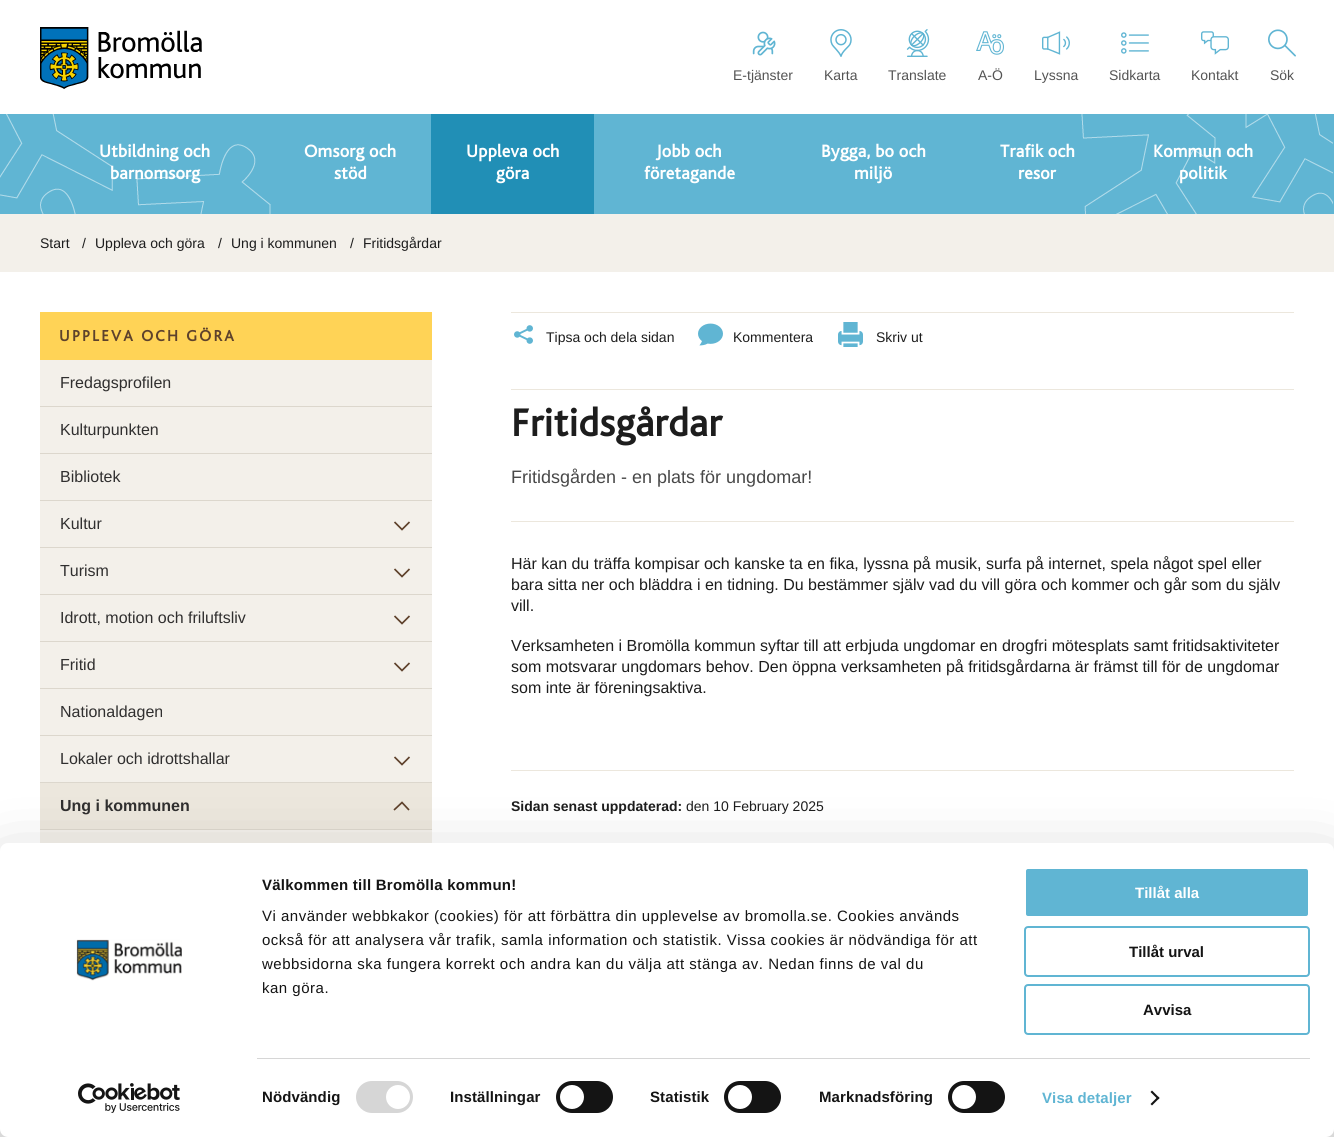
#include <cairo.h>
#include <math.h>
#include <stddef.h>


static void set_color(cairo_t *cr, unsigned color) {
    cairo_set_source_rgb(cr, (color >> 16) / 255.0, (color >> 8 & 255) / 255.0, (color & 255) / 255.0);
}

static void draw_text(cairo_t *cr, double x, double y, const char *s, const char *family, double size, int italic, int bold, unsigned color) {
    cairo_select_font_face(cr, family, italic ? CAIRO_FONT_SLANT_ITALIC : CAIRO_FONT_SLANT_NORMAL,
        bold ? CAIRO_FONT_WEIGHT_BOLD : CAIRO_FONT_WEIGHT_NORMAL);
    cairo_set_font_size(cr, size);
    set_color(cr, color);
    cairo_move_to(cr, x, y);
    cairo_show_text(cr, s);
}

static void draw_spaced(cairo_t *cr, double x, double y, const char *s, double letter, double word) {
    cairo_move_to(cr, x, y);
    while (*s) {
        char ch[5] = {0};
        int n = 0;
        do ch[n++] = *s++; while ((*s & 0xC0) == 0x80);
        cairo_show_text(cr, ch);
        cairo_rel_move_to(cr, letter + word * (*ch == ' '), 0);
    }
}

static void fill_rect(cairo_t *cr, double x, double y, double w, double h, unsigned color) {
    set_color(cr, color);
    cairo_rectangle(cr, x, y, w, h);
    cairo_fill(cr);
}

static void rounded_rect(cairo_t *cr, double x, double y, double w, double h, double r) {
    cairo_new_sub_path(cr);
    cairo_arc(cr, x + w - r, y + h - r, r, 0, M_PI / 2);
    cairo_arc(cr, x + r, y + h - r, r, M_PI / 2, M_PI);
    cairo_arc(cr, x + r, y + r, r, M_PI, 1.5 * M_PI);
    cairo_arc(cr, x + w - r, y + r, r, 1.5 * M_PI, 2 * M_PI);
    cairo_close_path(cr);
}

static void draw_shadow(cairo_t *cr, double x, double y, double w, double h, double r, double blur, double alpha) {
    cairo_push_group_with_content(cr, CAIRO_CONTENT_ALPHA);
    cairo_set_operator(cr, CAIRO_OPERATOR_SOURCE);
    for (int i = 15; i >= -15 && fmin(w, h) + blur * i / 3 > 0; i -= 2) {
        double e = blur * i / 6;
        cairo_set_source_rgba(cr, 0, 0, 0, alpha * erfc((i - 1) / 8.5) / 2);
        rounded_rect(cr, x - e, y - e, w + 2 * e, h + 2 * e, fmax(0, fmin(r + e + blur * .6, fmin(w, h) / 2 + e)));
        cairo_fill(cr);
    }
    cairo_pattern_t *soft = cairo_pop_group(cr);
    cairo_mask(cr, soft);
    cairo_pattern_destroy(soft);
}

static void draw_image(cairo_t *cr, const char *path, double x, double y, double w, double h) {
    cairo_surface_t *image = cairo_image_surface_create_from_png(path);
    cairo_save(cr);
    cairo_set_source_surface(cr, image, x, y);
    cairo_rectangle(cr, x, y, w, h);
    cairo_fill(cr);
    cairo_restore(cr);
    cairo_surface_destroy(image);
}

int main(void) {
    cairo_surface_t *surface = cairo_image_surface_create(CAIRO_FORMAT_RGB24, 1334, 1137);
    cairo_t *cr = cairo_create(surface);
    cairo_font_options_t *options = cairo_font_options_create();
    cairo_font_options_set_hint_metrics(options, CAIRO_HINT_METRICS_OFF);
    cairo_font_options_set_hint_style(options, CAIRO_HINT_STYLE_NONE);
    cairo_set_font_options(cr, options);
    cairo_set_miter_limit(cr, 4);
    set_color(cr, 0xFFFFFF);
    cairo_paint(cr);
    draw_image(cr, "assets/img1.png", 40, 27, 162, 62);
    draw_image(cr, "assets/img2.png", 752, 31, 24, 25);
    draw_text(cr, 733, 80, "E-tjänster", "Liberation Sans", 14, 0, 0, 0x545454);
    draw_image(cr, "assets/img3.png", 830, 29, 22, 28);
    draw_text(cr, 824, 80, "Karta", "Liberation Sans", 14, 0, 0, 0x545454);
    draw_image(cr, "assets/img4.png", 906, 29, 24, 28);
    draw_text(cr, 888, 80, "Translate", "Liberation Sans", 14, 0, 0, 0x545454);
    draw_image(cr, "assets/img5.png", 976, 31, 28, 24);
    draw_text(cr, 978, 80, "A-Ö", "Liberation Sans", 14, 0, 0, 0x545454);
    draw_image(cr, "assets/img6.png", 1042, 31, 28, 24);
    draw_text(cr, 1034, 80, "Lyssna", "Liberation Sans", 14, 0, 0, 0x545454);
    draw_image(cr, "assets/img7.png", 1121, 32, 28, 22);
    draw_text(cr, 1109, 80, "Sidkarta", "Liberation Sans", 14, 0, 0, 0x545454);
    draw_image(cr, "assets/img8.png", 1201, 31, 28, 24);
    draw_text(cr, 1191, 80, "Kontakt", "Liberation Sans", 14, 0, 0, 0x545454);
    draw_image(cr, "assets/img9.png", 1268, 29, 28, 28);
    draw_text(cr, 1270, 80, "Sök", "Liberation Sans", 14, 0, 0, 0x545454);
    fill_rect(cr, 0, 114, 1334, 100, 0x60B5D3);
    draw_image(cr, "assets/img10.png", 0, 114, 271, 100);
    draw_image(cr, "assets/img11.png", 1081, 114, 252, 100);
    cairo_select_font_face(cr, "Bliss", CAIRO_FONT_SLANT_NORMAL, CAIRO_FONT_WEIGHT_BOLD);
    cairo_set_font_size(cr, 18);
    set_color(cr, 0xFFFFFF);
    draw_spaced(cr, 99, 157, "Utbildning och", 0.25, 0);
    draw_spaced(cr, 110, 179, "barnomsorg", 0.25, 0);
    draw_spaced(cr, 304, 157, "Omsorg och", 0.25, 0);
    draw_spaced(cr, 334, 179, "stöd", 0.25, 0);
    fill_rect(cr, 431, 114, 163, 100, 0x218FB6);
    set_color(cr, 0xFFFFFF);
    draw_spaced(cr, 466, 157, "Uppleva och", 0.25, 0);
    draw_spaced(cr, 496, 179, "göra", 0.25, 0);
    draw_spaced(cr, 656, 157, "Jobb och", 0.25, 0);
    draw_spaced(cr, 644, 179, "företagande", 0.25, 0);
    draw_spaced(cr, 821, 157, "Bygga, bo och", 0.25, 0);
    draw_spaced(cr, 854, 179, "miljö", 0.25, 0);
    draw_spaced(cr, 1000, 157, "Trafik och", 0.25, 0);
    draw_spaced(cr, 1018, 179, "resor", 0.25, 0);
    draw_spaced(cr, 1153, 157, "Kommun och", 0.25, 0);
    draw_spaced(cr, 1179, 179, "politik", 0.25, 0);
    fill_rect(cr, 0, 214, 1334, 58, 0xF3F0EA);
    draw_text(cr, 40, 248, "Start", "Liberation Sans", 14, 0, 0, 0x1D1D1D);
    draw_text(cr, 82, 248, "/", "Liberation Sans", 14, 0, 0, 0x1D1D1D);
    draw_text(cr, 95, 248, "Uppleva och göra", "Liberation Sans", 14, 0, 0, 0x1D1D1D);
    draw_text(cr, 218, 248, "/", "Liberation Sans", 14, 0, 0, 0x1D1D1D);
    draw_text(cr, 231, 248, "Ung i kommunen", "Liberation Sans", 14, 0, 0, 0x1D1D1D);
    draw_text(cr, 350, 248, "/", "Liberation Sans", 14, 0, 0, 0x1D1D1D);
    draw_text(cr, 363, 248, "Fritidsgårdar", "Liberation Sans", 14, 0, 0, 0x1D1D1D);
    fill_rect(cr, 40, 312, 392, 48, 0xFFD356);
    cairo_select_font_face(cr, "Bliss", CAIRO_FONT_SLANT_NORMAL, CAIRO_FONT_WEIGHT_BOLD);
    cairo_set_font_size(cr, 16);
    set_color(cr, 0x5E422C);
    draw_spaced(cr, 59, 341, "UPPLEVA OCH GÖRA", 2.25, 0);
    fill_rect(cr, 40, 360, 392, 483, 0xF3F0EA);
    fill_rect(cr, 40, 406, 392, 1, 0xDCD7CD);
    draw_text(cr, 60, 388, "Fredagsprofilen", "Liberation Sans", 16, 0, 0, 0x302F2F);
    fill_rect(cr, 40, 453, 392, 1, 0xDCD7CD);
    draw_text(cr, 60, 435, "Kulturpunkten", "Liberation Sans", 16, 0, 0, 0x302F2F);
    fill_rect(cr, 40, 500, 392, 1, 0xDCD7CD);
    draw_text(cr, 60, 482, "Bibliotek", "Liberation Sans", 16, 0, 0, 0x302F2F);
    fill_rect(cr, 40, 547, 392, 1, 0xDCD7CD);
    draw_text(cr, 60, 529, "Kultur", "Liberation Sans", 16, 0, 0, 0x302F2F);
    cairo_new_path(cr);
    cairo_move_to(cr, 409.5, 522);
    cairo_line_to(cr, 402, 529.5);
    cairo_line_to(cr, 394.5, 522);
    set_color(cr, 0x5E412B);
    cairo_set_line_width(cr, 1.7);
    cairo_stroke(cr);
    fill_rect(cr, 40, 594, 392, 1, 0xDCD7CD);
    draw_text(cr, 60, 576, "Turism", "Liberation Sans", 16, 0, 0, 0x302F2F);
    cairo_new_path(cr);
    cairo_move_to(cr, 409.5, 569);
    cairo_line_to(cr, 402, 576.5);
    cairo_line_to(cr, 394.5, 569);
    set_color(cr, 0x5E412B);
    cairo_stroke(cr);
    fill_rect(cr, 40, 641, 392, 1, 0xDCD7CD);
    draw_text(cr, 60, 623, "Idrott, motion och friluftsliv", "Liberation Sans", 16, 0, 0, 0x302F2F);
    cairo_new_path(cr);
    cairo_move_to(cr, 409.5, 616);
    cairo_line_to(cr, 402, 623.5);
    cairo_line_to(cr, 394.5, 616);
    set_color(cr, 0x5E412B);
    cairo_stroke(cr);
    fill_rect(cr, 40, 688, 392, 1, 0xDCD7CD);
    draw_text(cr, 60, 670, "Fritid", "Liberation Sans", 16, 0, 0, 0x302F2F);
    cairo_new_path(cr);
    cairo_move_to(cr, 409.5, 663);
    cairo_line_to(cr, 402, 670.5);
    cairo_line_to(cr, 394.5, 663);
    set_color(cr, 0x5E412B);
    cairo_stroke(cr);
    fill_rect(cr, 40, 735, 392, 1, 0xDCD7CD);
    draw_text(cr, 60, 717, "Nationaldagen", "Liberation Sans", 16, 0, 0, 0x302F2F);
    fill_rect(cr, 40, 782, 392, 1, 0xDCD7CD);
    draw_text(cr, 60, 764, "Lokaler och idrottshallar", "Liberation Sans", 16, 0, 0, 0x302F2F);
    cairo_new_path(cr);
    cairo_move_to(cr, 409.5, 757);
    cairo_line_to(cr, 402, 764.5);
    cairo_line_to(cr, 394.5, 757);
    set_color(cr, 0x5E412B);
    cairo_stroke(cr);
    fill_rect(cr, 40, 783, 392, 46, 0xECE7DD);
    fill_rect(cr, 40, 829, 392, 1, 0xDCD7CD);
    draw_text(cr, 60, 811, "Ung i kommunen", "Liberation Sans", 16, 0, 1, 0x302F2F);
    cairo_new_path(cr);
    cairo_move_to(cr, 394, 810);
    cairo_line_to(cr, 402, 802.5);
    cairo_line_to(cr, 409, 810);
    set_color(cr, 0x5E412B);
    cairo_stroke(cr);
    fill_rect(cr, 511, 312, 783, 1, 0xECE7DD);
    fill_rect(cr, 511, 389, 783, 1, 0xECE7DD);
    draw_image(cr, "assets/img12.png", 514, 325, 19, 19);
    draw_text(cr, 546, 342, "Tipsa och dela sidan", "Liberation Sans", 14, 0, 0, 0x1D1D1D);
    draw_image(cr, "assets/img13.png", 698, 323, 25, 23);
    draw_text(cr, 733, 342, "Kommentera", "Liberation Sans", 14, 0, 0, 0x1D1D1D);
    draw_image(cr, "assets/img14.png", 838, 322, 25, 25);
    draw_text(cr, 876, 342, "Skriv ut", "Liberation Sans", 14, 0, 0, 0x1D1D1D);
    cairo_select_font_face(cr, "Bliss", CAIRO_FONT_SLANT_NORMAL, CAIRO_FONT_WEIGHT_BOLD);
    cairo_set_font_size(cr, 40);
    draw_spaced(cr, 511, 436, "Fritidsgårdar", 0.5, 0);
    fill_rect(cr, 511, 521, 783, 1, 0xECE7DD);
    draw_text(cr, 511, 483, "Fritidsgården - en plats för ungdomar!", "Liberation Sans", 18, 0, 0, 0x484848);
    draw_text(cr, 511, 569, "Här kan du träffa kompisar och kanske ta en fika, lyssna på musik, surfa på internet, spela något spel eller", "Liberation Sans", 16, 0, 0, 0x1D1D1D);
    draw_text(cr, 511, 590, "bara sitta ner och bläddra i en tidning. Du bestämmer själv vad du vill göra och kommer och går som du själv", "Liberation Sans", 16, 0, 0, 0x1D1D1D);
    draw_text(cr, 511, 611, "vill.", "Liberation Sans", 16, 0, 0, 0x1D1D1D);
    draw_text(cr, 511, 651, "Verksamheten i Bromölla kommun syftar till att erbjuda ungdomar en drogfri mötesplats samt fritidsaktiviteter", "Liberation Sans", 16, 0, 0, 0x1D1D1D);
    draw_text(cr, 511, 672, "som motsvarar ungdomars behov. Den öppna verksamheten på fritidsgårdarna är främst till för de ungdomar", "Liberation Sans", 16, 0, 0, 0x1D1D1D);
    draw_text(cr, 511, 693, "som inte är föreningsaktiva.", "Liberation Sans", 16, 0, 0, 0x1D1D1D);
    fill_rect(cr, 511, 770, 783, 1, 0xECE7DD);
    draw_text(cr, 511, 811, "Sidan senast uppdaterad:", "Liberation Sans", 14, 0, 1, 0x1D1D1D);
    draw_text(cr, 686, 811, "den 10 February 2025", "Liberation Sans", 14, 0, 0, 0x1D1D1D);
    set_color(cr, 0x000000);
    draw_shadow(cr, 0, 873, 1334, 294, 8, 35, 0.3);
    set_color(cr, 0xFFFFFF);
    rounded_rect(cr, 0, 843, 1334, 294, 8);
    cairo_fill(cr);
    draw_image(cr, "assets/img15.png", 76, 939, 106, 42);
    draw_image(cr, "assets/img16.png", 78, 1083, 102, 30);
    cairo_select_font_face(cr, "Liberation Sans", CAIRO_FONT_SLANT_NORMAL, CAIRO_FONT_WEIGHT_BOLD);
    cairo_set_font_size(cr, 15);
    set_color(cr, 0x141414);
    draw_spaced(cr, 262, 890, "Välkommen till Bromölla kommun!", 0.25, 0);
    cairo_select_font_face(cr, "Liberation Sans", CAIRO_FONT_SLANT_NORMAL, CAIRO_FONT_WEIGHT_NORMAL);
    draw_spaced(cr, 262, 921, "Vi använder webbkakor (cookies) för att förbättra din upplevelse av bromolla.se. Cookies används", 0.5, 0);
    draw_spaced(cr, 262, 945, "också för att analysera vår trafik, samla information och statistik. Vissa cookies är nödvändiga för att", 0.5, 0);
    draw_spaced(cr, 262, 969, "webbsidorna ska fungera korrekt och andra kan du välja att stänga av. Nedan finns de val du", 0.5, 0);
    draw_spaced(cr, 262, 993, "kan göra.", 0.5, 0);
    fill_rect(cr, 257, 1058, 1053, 1, 0xD6D6D6);
    cairo_select_font_face(cr, "Liberation Sans", CAIRO_FONT_SLANT_NORMAL, CAIRO_FONT_WEIGHT_BOLD);
    set_color(cr, 0x141414);
    draw_spaced(cr, 262, 1102, "Nödvändig", 0.1, 0);
    set_color(cr, 0xD6D6D6);
    rounded_rect(cr, 356, 1081, 57, 32, 16);
    cairo_fill(cr);
    set_color(cr, 0xFFFFFF);
    cairo_arc(cr, 398, 1097, 12, 0, 2 * M_PI);
    cairo_fill(cr);
    set_color(cr, 0x141414);
    draw_spaced(cr, 450, 1102, "Inställningar", 0.1, 0);
    rounded_rect(cr, 556, 1081, 57, 32, 16);
    cairo_fill(cr);
    set_color(cr, 0xFFFFFF);
    cairo_arc(cr, 572, 1097, 12, 0, 2 * M_PI);
    cairo_fill(cr);
    set_color(cr, 0x141414);
    draw_spaced(cr, 650, 1102, "Statistik", 0.1, 0);
    rounded_rect(cr, 724, 1081, 57, 32, 16);
    cairo_fill(cr);
    set_color(cr, 0xFFFFFF);
    cairo_arc(cr, 740, 1097, 12, 0, 2 * M_PI);
    cairo_fill(cr);
    set_color(cr, 0x141414);
    draw_spaced(cr, 819, 1102, "Marknadsföring", 0.1, 0);
    rounded_rect(cr, 948, 1081, 57, 32, 16);
    cairo_fill(cr);
    set_color(cr, 0xFFFFFF);
    cairo_arc(cr, 964, 1097, 12, 0, 2 * M_PI);
    cairo_fill(cr);
    set_color(cr, 0x60B5D3);
    draw_spaced(cr, 1042, 1103, "Visa detaljer", 0.1, 0);
    set_color(cr, 0x141414);
    cairo_new_path(cr);
    cairo_move_to(cr, 1152, 1090.5);
    cairo_line_to(cr, 1159.5, 1098);
    cairo_line_to(cr, 1158, 1099.5);
    cairo_line_to(cr, 1150.5, 1092);
    cairo_close_path(cr);
    cairo_fill(cr);
    cairo_new_path(cr);
    cairo_move_to(cr, 1158, 1096.5);
    cairo_line_to(cr, 1159.5, 1098);
    cairo_line_to(cr, 1152, 1105.5);
    cairo_line_to(cr, 1150.5, 1104);
    cairo_close_path(cr);
    cairo_fill(cr);
    set_color(cr, 0x60B5D3);
    rounded_rect(cr, 1025, 868, 284, 49, 3);
    cairo_fill_preserve(cr);
    set_color(cr, 0xFFFFFF);
    cairo_set_line_width(cr, 2);
    cairo_stroke(cr);
    draw_text(cr, 1135, 898, "Tillåt alla", "Liberation Sans", 15, 0, 1, 0xFFFFFF);
    rounded_rect(cr, 1025, 927, 284, 49, 3);
    set_color(cr, 0x60B5D3);
    cairo_stroke(cr);
    draw_text(cr, 1129, 957, "Tillåt urval", "Liberation Sans", 15, 0, 1, 0x141414);
    rounded_rect(cr, 1025, 985, 284, 49, 3);
    set_color(cr, 0x60B5D3);
    cairo_stroke(cr);
    draw_text(cr, 1143, 1015, "Avvisa", "Liberation Sans", 15, 0, 1, 0x141414);
    cairo_surface_write_to_png(surface, "output.png");
    cairo_font_options_destroy(options);
    cairo_destroy(cr);
    cairo_surface_destroy(surface);
    return 0;
}
